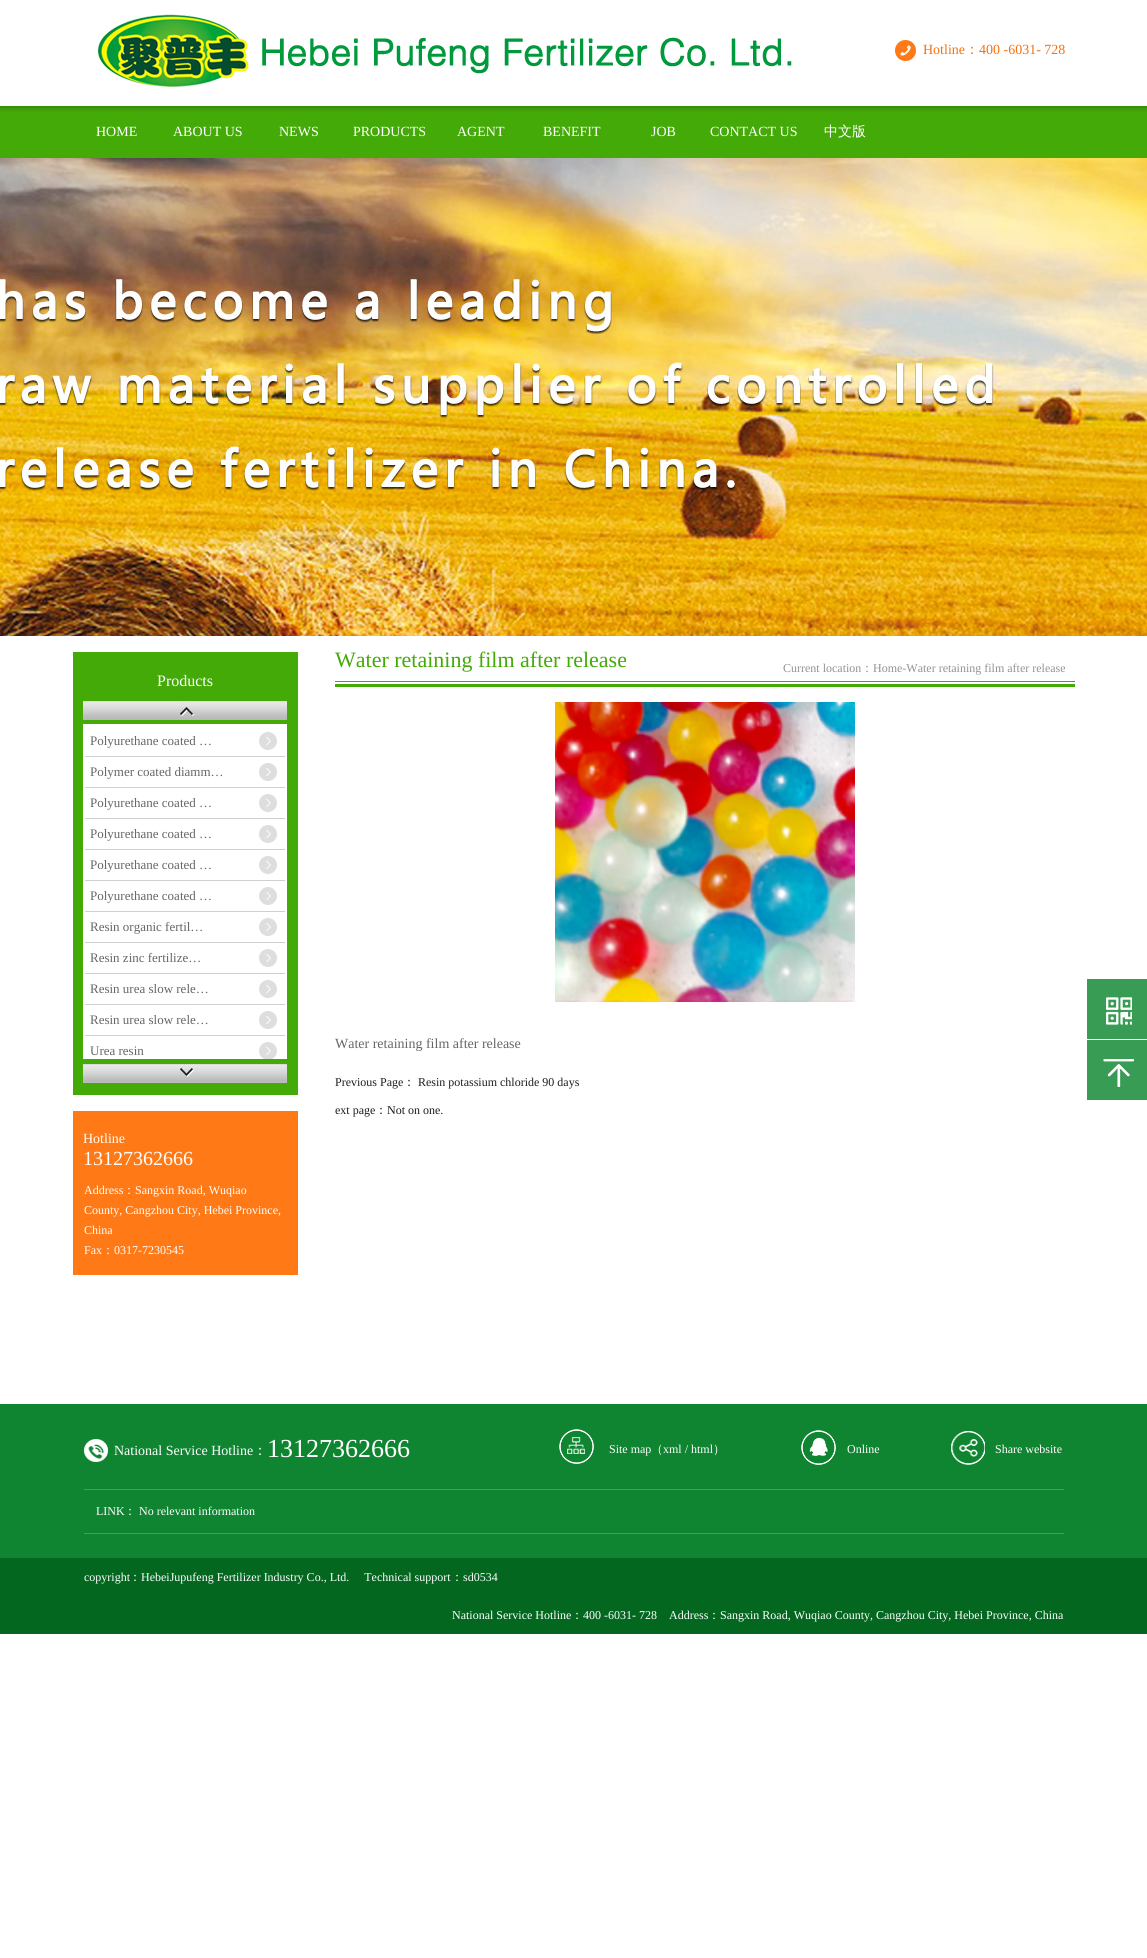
#include <cairo.h>
#include <math.h>
#include <stddef.h>


static void set_color(cairo_t *cr, unsigned color) {
    cairo_set_source_rgb(cr, (color >> 16) / 255.0, (color >> 8 & 255) / 255.0, (color & 255) / 255.0);
}

static void draw_text(cairo_t *cr, double x, double y, const char *s, const char *family, double size, int italic, int bold, unsigned color) {
    cairo_select_font_face(cr, family, italic ? CAIRO_FONT_SLANT_ITALIC : CAIRO_FONT_SLANT_NORMAL,
        bold ? CAIRO_FONT_WEIGHT_BOLD : CAIRO_FONT_WEIGHT_NORMAL);
    cairo_set_font_size(cr, size);
    set_color(cr, color);
    cairo_move_to(cr, x, y);
    cairo_show_text(cr, s);
}

static void fill_rect(cairo_t *cr, double x, double y, double w, double h, unsigned color) {
    set_color(cr, color);
    cairo_rectangle(cr, x, y, w, h);
    cairo_fill(cr);
}

static void draw_image(cairo_t *cr, const char *path, double x, double y, double w, double h) {
    cairo_surface_t *image = cairo_image_surface_create_from_png(path);
    cairo_save(cr);
    cairo_set_source_surface(cr, image, x, y);
    cairo_rectangle(cr, x, y, w, h);
    cairo_fill(cr);
    cairo_restore(cr);
    cairo_surface_destroy(image);
}

int main(void) {
    cairo_surface_t *surface = cairo_image_surface_create(CAIRO_FORMAT_RGB24, 1147, 1958);
    cairo_t *cr = cairo_create(surface);
    cairo_font_options_t *options = cairo_font_options_create();
    cairo_font_options_set_hint_metrics(options, CAIRO_HINT_METRICS_OFF);
    cairo_font_options_set_hint_style(options, CAIRO_HINT_STYLE_NONE);
    cairo_set_font_options(cr, options);
    cairo_set_miter_limit(cr, 4);
    set_color(cr, 0xFFFFFF);
    cairo_paint(cr);
    draw_image(cr, "assets/img1.png", 97, 14, 695, 73);
    draw_image(cr, "assets/img2.png", 895, 40, 21, 21);
    draw_text(cr, 923, 54, "Hotline", "Liberation Serif", 14, 0, 0, 0xF47110);
    draw_text(cr, 965, 54, "：", "WenQuanYi Zen Hei Medium", 14, 0, 0, 0xF47110);
    draw_text(cr, 979, 54, "400 -6031- 728", "Liberation Serif", 14, 0, 0, 0xF47110);
    draw_image(cr, "assets/img3.png", 0, 106, 1147, 52);
    draw_text(cr, 96, 136, "HOME", "Liberation Serif", 14, 0, 0, 0xFFFFFF);
    draw_text(cr, 173, 136, "ABOUT US", "Liberation Serif", 14, 0, 0, 0xFFFFFF);
    draw_text(cr, 279, 136, "NEWS", "Liberation Serif", 14, 0, 0, 0xFFFFFF);
    draw_text(cr, 353, 136, "PRODUCTS", "Liberation Serif", 14, 0, 0, 0xFFFFFF);
    draw_text(cr, 457, 136, "AGENT", "Liberation Serif", 14, 0, 0, 0xFFFFFF);
    draw_text(cr, 543, 136, "BENEFIT", "Liberation Serif", 14, 0, 0, 0xFFFFFF);
    draw_text(cr, 651, 136, "JOB", "Liberation Serif", 14, 0, 0, 0xFFFFFF);
    draw_text(cr, 710, 136, "CONTACT US", "Liberation Serif", 14, 0, 0, 0xFFFFFF);
    draw_text(cr, 824, 136, "中文版", "WenQuanYi Zen Hei Medium", 14, 0, 0, 0xFFFFFF);
    draw_image(cr, "assets/img4.png", 0, 158, 1147, 478);
    fill_rect(cr, 73, 652, 225, 443, 0x44AA08);
    draw_text(cr, 157, 686, "Products", "Liberation Serif", 16, 0, 0, 0xFFFFFF);
    draw_image(cr, "assets/img5.png", 83, 701, 204, 19);
    fill_rect(cr, 83, 724, 204, 335, 0xFFFFFF);
    draw_image(cr, "assets/img6.png", 259, 732, 18, 18);
    fill_rect(cr, 85, 756, 200, 1, 0xCFCFCF);
    draw_text(cr, 90, 745, "Polyurethane coated …", "Liberation Serif", 13, 0, 0, 0x666666);
    draw_image(cr, "assets/img6.png", 259, 763, 18, 18);
    fill_rect(cr, 85, 787, 200, 1, 0xCFCFCF);
    draw_text(cr, 90, 776, "Polymer coated diamm…", "Liberation Serif", 13, 0, 0, 0x666666);
    draw_image(cr, "assets/img6.png", 259, 794, 18, 18);
    fill_rect(cr, 85, 818, 200, 1, 0xCFCFCF);
    draw_text(cr, 90, 807, "Polyurethane coated …", "Liberation Serif", 13, 0, 0, 0x666666);
    draw_image(cr, "assets/img6.png", 259, 825, 18, 18);
    fill_rect(cr, 85, 849, 200, 1, 0xCFCFCF);
    draw_text(cr, 90, 838, "Polyurethane coated …", "Liberation Serif", 13, 0, 0, 0x666666);
    draw_image(cr, "assets/img6.png", 259, 856, 18, 18);
    fill_rect(cr, 85, 880, 200, 1, 0xCFCFCF);
    draw_text(cr, 90, 869, "Polyurethane coated …", "Liberation Serif", 13, 0, 0, 0x666666);
    draw_image(cr, "assets/img6.png", 259, 887, 18, 18);
    fill_rect(cr, 85, 911, 200, 1, 0xCFCFCF);
    draw_text(cr, 90, 900, "Polyurethane coated …", "Liberation Serif", 13, 0, 0, 0x666666);
    draw_image(cr, "assets/img6.png", 259, 918, 18, 18);
    fill_rect(cr, 85, 942, 200, 1, 0xCFCFCF);
    draw_text(cr, 90, 931, "Resin organic fertil…", "Liberation Serif", 13, 0, 0, 0x666666);
    draw_image(cr, "assets/img6.png", 259, 949, 18, 18);
    fill_rect(cr, 85, 973, 200, 1, 0xCFCFCF);
    draw_text(cr, 90, 962, "Resin zinc fertilize…", "Liberation Serif", 13, 0, 0, 0x666666);
    draw_image(cr, "assets/img6.png", 259, 980, 18, 18);
    fill_rect(cr, 85, 1004, 200, 1, 0xCFCFCF);
    draw_text(cr, 90, 993, "Resin urea slow rele…", "Liberation Serif", 13, 0, 0, 0x666666);
    draw_image(cr, "assets/img6.png", 259, 1011, 18, 18);
    fill_rect(cr, 85, 1035, 200, 1, 0xCFCFCF);
    draw_text(cr, 90, 1024, "Resin urea slow rele…", "Liberation Serif", 13, 0, 0, 0x666666);
    draw_image(cr, "assets/img7.png", 259, 1042, 18, 17);
    draw_text(cr, 90, 1055, "Urea resin", "Liberation Serif", 13, 0, 0, 0x666666);
    draw_image(cr, "assets/img8.png", 83, 1064, 204, 19);
    fill_rect(cr, 73, 1111, 225, 164, 0xFF7916);
    draw_text(cr, 83, 1143, "Hotline", "Liberation Serif", 14, 0, 0, 0xFFFFFF);
    draw_text(cr, 83, 1165, "13127362666", "Liberation Serif", 20, 0, 0, 0xFFFFFF);
    draw_text(cr, 84, 1194, "Address", "Liberation Serif", 12, 0, 0, 0xFFFFFF);
    draw_text(cr, 123, 1194, "：", "WenQuanYi Zen Hei Medium", 12, 0, 0, 0xFFFFFF);
    draw_text(cr, 135, 1194, "Sangxin Road, Wuqiao", "Liberation Serif", 12, 0, 0, 0xFFFFFF);
    draw_text(cr, 84, 1214, "County, Cangzhou City, Hebei Province,", "Liberation Serif", 12, 0, 0, 0xFFFFFF);
    draw_text(cr, 84, 1234, "China", "Liberation Serif", 12, 0, 0, 0xFFFFFF);
    draw_text(cr, 84, 1254, "Fax", "Liberation Serif", 12, 0, 0, 0xFFFFFF);
    draw_text(cr, 102, 1254, "：", "WenQuanYi Zen Hei Medium", 12, 0, 0, 0xFFFFFF);
    draw_text(cr, 114, 1254, "0317-7230545", "Liberation Serif", 12, 0, 0, 0xFFFFFF);
    draw_image(cr, "assets/img9.png", 335, 681, 740, 6);
    draw_text(cr, 335, 667, "Water retaining film after release", "Liberation Serif", 22, 0, 0, 0x44AA08);
    draw_text(cr, 783, 672, "Current location", "Liberation Serif", 12, 0, 0, 0x939393);
    draw_text(cr, 861, 672, "：", "WenQuanYi Zen Hei Medium", 12, 0, 0, 0x939393);
    draw_text(cr, 873, 672, "Home-Water retaining film after release", "Liberation Serif", 12, 0, 0, 0x939393);
    draw_image(cr, "assets/img10.png", 555, 702, 300, 300);
    draw_text(cr, 335, 1048, "Water retaining film after release", "Liberation Serif", 14, 0, 0, 0x666666);
    draw_text(cr, 335, 1086, "Previous Page", "Liberation Serif", 12, 0, 0, 0x1D1D1D);
    draw_text(cr, 403, 1086, "：", "WenQuanYi Zen Hei Medium", 12, 0, 0, 0x1D1D1D);
    draw_text(cr, 418, 1086, "Resin potassium chloride 90 days", "Liberation Serif", 12, 0, 0, 0x1D1D1D);
    draw_text(cr, 335, 1114, "ext page", "Liberation Serif", 12, 0, 0, 0x1D1D1D);
    draw_text(cr, 375, 1114, "：", "WenQuanYi Zen Hei Medium", 12, 0, 0, 0x1D1D1D);
    draw_text(cr, 387, 1114, "Not on one.", "Liberation Serif", 12, 0, 0, 0x1D1D1D);
    fill_rect(cr, 1087, 979, 60, 60, 0x399C55);
    draw_image(cr, "assets/img11.png", 1106, 997, 26, 28);
    fill_rect(cr, 1087, 1040, 60, 60, 0x399C55);
    draw_image(cr, "assets/img12.png", 1103, 1059, 31, 28);
    fill_rect(cr, 0, 1404, 1147, 154, 0x0F8531);
    draw_image(cr, "assets/img13.png", 84, 1439, 24, 23);
    draw_text(cr, 114, 1455, "National Service Hotline", "Liberation Serif", 14, 0, 0, 0xFFFFFF);
    draw_text(cr, 253, 1455, "：", "WenQuanYi Zen Hei Medium", 14, 0, 0, 0xFFFFFF);
    draw_text(cr, 267, 1457, "13127362666", "Liberation Serif", 26, 0, 0, 0xFFFFFF);
    draw_image(cr, "assets/img14.png", 559, 1429, 35, 35);
    draw_text(cr, 609, 1453, "Site map", "Liberation Serif", 12, 0, 0, 0xFFFFFF);
    draw_text(cr, 651, 1453, "（", "WenQuanYi Zen Hei Medium", 12, 0, 0, 0xFFFFFF);
    draw_text(cr, 663, 1453, "xml / html", "Liberation Serif", 12, 0, 0, 0xFFFFFF);
    draw_text(cr, 713, 1453, "）", "WenQuanYi Zen Hei Medium", 12, 0, 0, 0xFFFFFF);
    draw_image(cr, "assets/img15.png", 801, 1430, 35, 35);
    draw_text(cr, 847, 1453, "Online", "Liberation Serif", 12, 0, 0, 0xFFFFFF);
    draw_image(cr, "assets/img16.png", 951, 1431, 34, 34);
    draw_text(cr, 995, 1453, "Share website", "Liberation Serif", 12, 0, 0, 0xFFFFFF);
    fill_rect(cr, 84, 1489, 980, 1, 0x429F5D);
    fill_rect(cr, 84, 1533, 980, 1, 0x429F5D);
    draw_text(cr, 96, 1515, "LINK", "Liberation Serif", 12, 0, 0, 0xFFFFFF);
    draw_text(cr, 124, 1515, "：", "WenQuanYi Zen Hei Medium", 12, 0, 0, 0xFFFFFF);
    draw_text(cr, 139, 1515, "No relevant information", "Liberation Serif", 12, 0, 0, 0xFFFFFF);
    fill_rect(cr, 0, 1558, 1147, 76, 0x036720);
    draw_text(cr, 84, 1581, "copyright", "Liberation Serif", 12, 0, 0, 0xFFFFFF);
    draw_text(cr, 129, 1581, "：", "WenQuanYi Zen Hei Medium", 12, 0, 0, 0xFFFFFF);
    draw_text(cr, 141, 1581, "HebeiJupufeng Fertilizer Industry Co., Ltd.     Technical support", "Liberation Serif", 12, 0, 0, 0xFFFFFF);
    draw_text(cr, 451, 1581, "：", "WenQuanYi Zen Hei Medium", 12, 0, 0, 0xFFFFFF);
    draw_text(cr, 463, 1581, "sd0534", "Liberation Serif", 12, 0, 0, 0xFFFFFF);
    draw_text(cr, 452, 1619, "National Service Hotline", "Liberation Serif", 12, 0, 0, 0xFFFFFF);
    draw_text(cr, 571, 1619, "：", "WenQuanYi Zen Hei Medium", 12, 0, 0, 0xFFFFFF);
    draw_text(cr, 583, 1619, "400 -6031- 728", "Liberation Serif", 12, 0, 0, 0xFFFFFF);
    draw_text(cr, 669, 1619, "Address", "Liberation Serif", 12, 0, 0, 0xFFFFFF);
    draw_text(cr, 708, 1619, "：", "WenQuanYi Zen Hei Medium", 12, 0, 0, 0xFFFFFF);
    draw_text(cr, 720, 1619, "Sangxin Road, Wuqiao County, Cangzhou City, Hebei Province, China", "Liberation Serif", 12, 0, 0, 0xFFFFFF);
    cairo_surface_write_to_png(surface, "output.png");
    cairo_font_options_destroy(options);
    cairo_destroy(cr);
    cairo_surface_destroy(surface);
    return 0;
}
